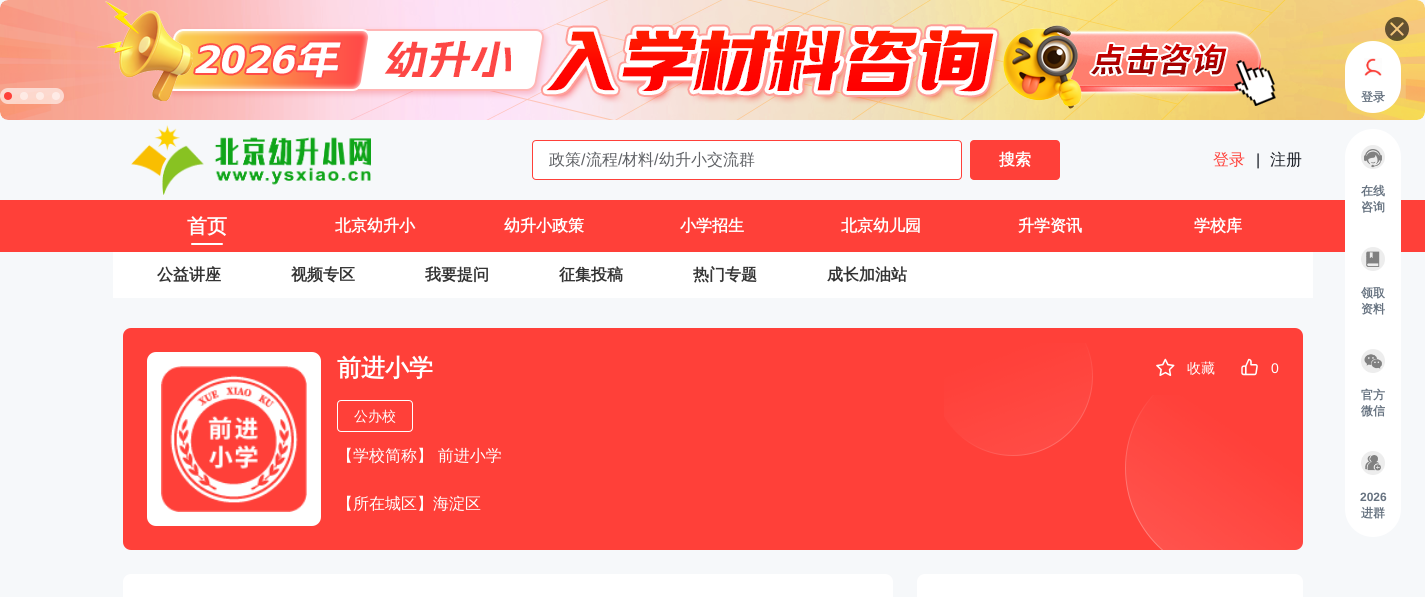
#include <cairo.h>
#include <math.h>
#include <stddef.h>


static void set_color(cairo_t *cr, unsigned color) {
    cairo_set_source_rgb(cr, (color >> 16) / 255.0, (color >> 8 & 255) / 255.0, (color & 255) / 255.0);
}

static void draw_text(cairo_t *cr, double x, double y, const char *s, const char *family, double size, int italic, int bold, unsigned color) {
    cairo_select_font_face(cr, family, italic ? CAIRO_FONT_SLANT_ITALIC : CAIRO_FONT_SLANT_NORMAL,
        bold ? CAIRO_FONT_WEIGHT_BOLD : CAIRO_FONT_WEIGHT_NORMAL);
    cairo_set_font_size(cr, size);
    set_color(cr, color);
    cairo_move_to(cr, x, y);
    cairo_show_text(cr, s);
}

static void fill_rect(cairo_t *cr, double x, double y, double w, double h, unsigned color) {
    set_color(cr, color);
    cairo_rectangle(cr, x, y, w, h);
    cairo_fill(cr);
}

static void rounded_rect(cairo_t *cr, double x, double y, double w, double h, double r) {
    cairo_new_sub_path(cr);
    cairo_arc(cr, x + w - r, y + h - r, r, 0, M_PI / 2);
    cairo_arc(cr, x + r, y + h - r, r, M_PI / 2, M_PI);
    cairo_arc(cr, x + r, y + r, r, M_PI, 1.5 * M_PI);
    cairo_arc(cr, x + w - r, y + r, r, 1.5 * M_PI, 2 * M_PI);
    cairo_close_path(cr);
}

static void draw_image(cairo_t *cr, const char *path, double x, double y, double w, double h) {
    cairo_surface_t *image = cairo_image_surface_create_from_png(path);
    cairo_save(cr);
    cairo_set_source_surface(cr, image, x, y);
    cairo_rectangle(cr, x, y, w, h);
    cairo_fill(cr);
    cairo_restore(cr);
    cairo_surface_destroy(image);
}

int main(void) {
    cairo_surface_t *surface = cairo_image_surface_create(CAIRO_FORMAT_RGB24, 1425, 597);
    cairo_t *cr = cairo_create(surface);
    cairo_font_options_t *options = cairo_font_options_create();
    cairo_font_options_set_hint_metrics(options, CAIRO_HINT_METRICS_OFF);
    cairo_font_options_set_hint_style(options, CAIRO_HINT_STYLE_NONE);
    cairo_set_font_options(cr, options);
    cairo_set_miter_limit(cr, 4);
    set_color(cr, 0xF6F8FA);
    cairo_paint(cr);
    draw_image(cr, "assets/img1.png", 0, 0, 1425, 120);
    cairo_set_source_rgba(cr, 1, 1, 1, 0.6);
    rounded_rect(cr, 0, 88, 64, 16, 8);
    cairo_fill(cr);
    set_color(cr, 0xFF4039);
    cairo_arc(cr, 8, 96, 4, 0, 2 * M_PI);
    cairo_fill(cr);
    cairo_set_source_rgba(cr, 1, 1, 1, 0.48);
    cairo_arc(cr, 24, 96, 4, 0, 2 * M_PI);
    cairo_fill(cr);
    cairo_arc(cr, 40, 96, 4, 0, 2 * M_PI);
    cairo_fill(cr);
    set_color(cr, 0xFEEBE6);
    cairo_arc(cr, 56, 96, 4, 0, 2 * M_PI);
    cairo_fill(cr);
    draw_image(cr, "assets/img2.png", 1385, 17, 24, 24);
    draw_image(cr, "assets/img3.png", 131, 125, 240, 70);
    set_color(cr, 0xFFFFFF);
    rounded_rect(cr, 532.5, 140.5, 429, 39, 3.5);
    cairo_fill_preserve(cr);
    set_color(cr, 0xFF4039);
    cairo_set_line_width(cr, 1);
    cairo_stroke(cr);
    draw_text(cr, 549, 165, "政策", "WenQuanYi Zen Hei Medium", 16, 0, 0, 0x606266);
    draw_text(cr, 581, 165, "/", "Liberation Sans", 16, 0, 0, 0x606266);
    draw_text(cr, 586, 165, "流程", "WenQuanYi Zen Hei Medium", 16, 0, 0, 0x606266);
    draw_text(cr, 618, 165, "/", "Liberation Sans", 16, 0, 0, 0x606266);
    draw_text(cr, 622, 165, "材料", "WenQuanYi Zen Hei Medium", 16, 0, 0, 0x606266);
    draw_text(cr, 654, 165, "/", "Liberation Sans", 16, 0, 0, 0x606266);
    draw_text(cr, 659, 165, "幼升小交流群", "WenQuanYi Zen Hei Medium", 16, 0, 0, 0x606266);
    set_color(cr, 0xFF4039);
    rounded_rect(cr, 970, 140, 90, 40, 4);
    cairo_fill(cr);
    draw_text(cr, 999, 165, "搜索", "WenQuanYi Zen Hei", 16, 0, 1, 0xFFFFFF);
    draw_text(cr, 1213, 165, "登录", "WenQuanYi Zen Hei Medium", 16, 0, 0, 0xFF4039);
    draw_text(cr, 1256, 165, "|", "Liberation Sans", 16, 0, 0, 0x1D2129);
    draw_text(cr, 1270, 165, "注册", "WenQuanYi Zen Hei Medium", 16, 0, 0, 0x1D2129);
    fill_rect(cr, 0, 200, 1425, 52, 0xFF4039);
    draw_text(cr, 187, 233, "首页", "WenQuanYi Zen Hei", 20, 0, 1, 0xFFFFFF);
    rounded_rect(cr, 191, 243, 32, 2, 1);
    cairo_fill(cr);
    draw_text(cr, 335, 231, "北京幼升小", "WenQuanYi Zen Hei", 16, 0, 1, 0xFFFFFF);
    draw_text(cr, 504, 231, "幼升小政策", "WenQuanYi Zen Hei", 16, 0, 1, 0xFFFFFF);
    draw_text(cr, 680, 231, "小学招生", "WenQuanYi Zen Hei", 16, 0, 1, 0xFFFFFF);
    draw_text(cr, 841, 231, "北京幼儿园", "WenQuanYi Zen Hei", 16, 0, 1, 0xFFFFFF);
    draw_text(cr, 1018, 231, "升学资讯", "WenQuanYi Zen Hei", 16, 0, 1, 0xFFFFFF);
    draw_text(cr, 1194, 231, "学校库", "WenQuanYi Zen Hei", 16, 0, 1, 0xFFFFFF);
    fill_rect(cr, 113, 252, 1200, 46, 0xFFFFFF);
    draw_text(cr, 157, 280, "公益讲座", "WenQuanYi Zen Hei", 16, 0, 1, 0x333333);
    draw_text(cr, 291, 280, "视频专区", "WenQuanYi Zen Hei", 16, 0, 1, 0x333333);
    draw_text(cr, 425, 280, "我要提问", "WenQuanYi Zen Hei", 16, 0, 1, 0x333333);
    draw_text(cr, 559, 280, "征集投稿", "WenQuanYi Zen Hei", 16, 0, 1, 0x333333);
    draw_text(cr, 693, 280, "热门专题", "WenQuanYi Zen Hei", 16, 0, 1, 0x333333);
    draw_text(cr, 827, 280, "成长加油站", "WenQuanYi Zen Hei", 16, 0, 1, 0x333333);
    set_color(cr, 0xFF4039);
    rounded_rect(cr, 123, 328, 1180, 222, 8);
    cairo_fill(cr);
    set_color(cr, 0xFFFFFF);
    rounded_rect(cr, 147, 352, 174, 174, 9);
    cairo_fill(cr);
    draw_image(cr, "assets/img4.png", 161, 366, 146, 146);
    draw_image(cr, "assets/img5.png", 944, 343, 149, 113);
    draw_text(cr, 337, 376, "前进小学", "WenQuanYi Zen Hei", 24, 0, 1, 0xFFFFFF);
    draw_image(cr, "assets/img6.png", 1156, 358, 19, 19);
    draw_text(cr, 1187, 373, "收藏", "WenQuanYi Zen Hei Medium", 14, 0, 0, 0xFFFFFF);
    draw_image(cr, "assets/img7.png", 1241, 358, 17, 18);
    draw_text(cr, 1271, 373, "0", "Liberation Sans", 14, 0, 0, 0xFFFFFF);
    rounded_rect(cr, 337.5, 400.5, 75, 31, 3.5);
    cairo_stroke(cr);
    draw_text(cr, 354, 421, "公办校", "WenQuanYi Zen Hei Medium", 14, 0, 0, 0xFFFFFF);
    draw_text(cr, 337, 461, "【学校简称】 前进小学", "WenQuanYi Zen Hei Medium", 16, 0, 0, 0xFFFFFF);
    draw_text(cr, 337, 509, "【所在城区】海淀区", "WenQuanYi Zen Hei Medium", 16, 0, 0, 0xFFFFFF);
    draw_image(cr, "assets/img8.png", 1125, 395, 178, 155);
    cairo_new_path(cr);
    cairo_move_to(cr, 131, 574);
    cairo_line_to(cr, 885, 574);
    cairo_curve_to(cr, 889.5, 574, 893, 577.5, 893, 582);
    cairo_line_to(cr, 893, 597);
    cairo_line_to(cr, 123, 597);
    cairo_line_to(cr, 123, 582);
    cairo_curve_to(cr, 123, 577.5, 126.5, 574, 131, 574);
    cairo_close_path(cr);
    cairo_fill(cr);
    cairo_new_path(cr);
    cairo_move_to(cr, 925, 574);
    cairo_line_to(cr, 1295, 574);
    cairo_curve_to(cr, 1299.5, 574, 1303, 577.5, 1303, 582);
    cairo_line_to(cr, 1303, 597);
    cairo_line_to(cr, 917, 597);
    cairo_line_to(cr, 917, 582);
    cairo_curve_to(cr, 917, 577.5, 920.5, 574, 925, 574);
    cairo_close_path(cr);
    cairo_fill(cr);
    rounded_rect(cr, 1345, 41, 56, 72, 28);
    cairo_fill(cr);
    draw_image(cr, "assets/img9.png", 1364, 58, 18, 18);
    draw_text(cr, 1361, 101, "登录", "WenQuanYi Zen Hei", 12, 0, 1, 0x667280);
    set_color(cr, 0xFFFFFF);
    rounded_rect(cr, 1345, 129, 56, 408, 28);
    cairo_fill(cr);
    draw_image(cr, "assets/img10.png", 1361, 145, 24, 24);
    draw_text(cr, 1361, 195, "在线", "WenQuanYi Zen Hei", 12, 0, 1, 0x667280);
    draw_text(cr, 1361, 211, "咨询", "WenQuanYi Zen Hei", 12, 0, 1, 0x667280);
    draw_image(cr, "assets/img11.png", 1361, 247, 24, 24);
    draw_text(cr, 1361, 297, "领取", "WenQuanYi Zen Hei", 12, 0, 1, 0x667280);
    draw_text(cr, 1361, 313, "资料", "WenQuanYi Zen Hei", 12, 0, 1, 0x667280);
    draw_image(cr, "assets/img12.png", 1361, 349, 24, 24);
    draw_text(cr, 1361, 399, "官方", "WenQuanYi Zen Hei", 12, 0, 1, 0x667280);
    draw_text(cr, 1361, 415, "微信", "WenQuanYi Zen Hei", 12, 0, 1, 0x667280);
    draw_image(cr, "assets/img13.png", 1361, 451, 24, 24);
    draw_text(cr, 1360, 501, "2026", "Liberation Sans", 12, 0, 1, 0x667280);
    draw_text(cr, 1361, 517, "进群", "WenQuanYi Zen Hei", 12, 0, 1, 0x667280);
    cairo_surface_write_to_png(surface, "output.png");
    cairo_font_options_destroy(options);
    cairo_destroy(cr);
    cairo_surface_destroy(surface);
    return 0;
}
